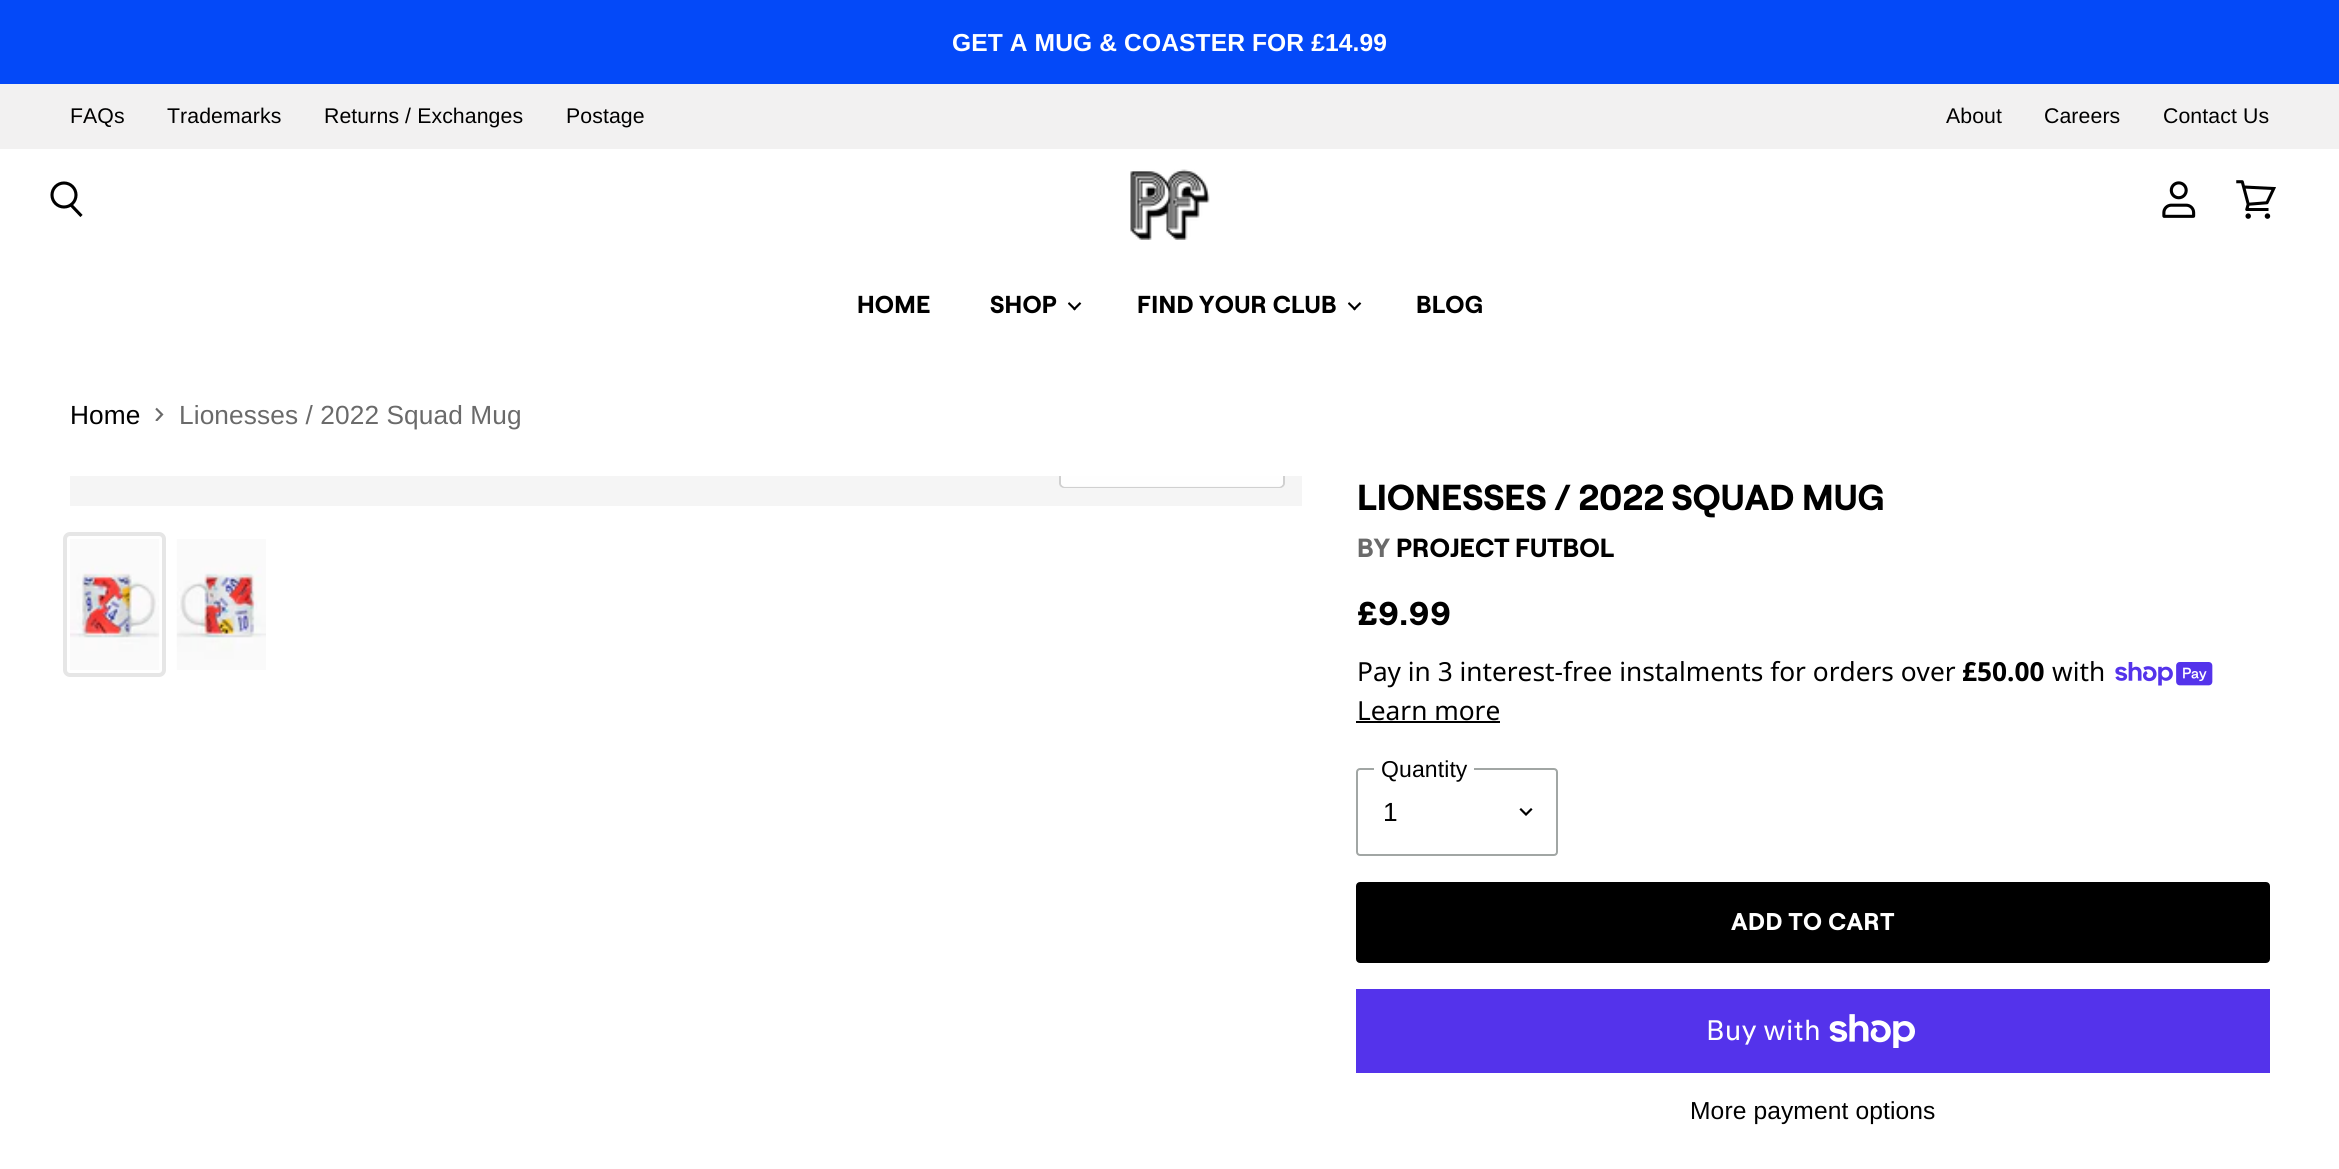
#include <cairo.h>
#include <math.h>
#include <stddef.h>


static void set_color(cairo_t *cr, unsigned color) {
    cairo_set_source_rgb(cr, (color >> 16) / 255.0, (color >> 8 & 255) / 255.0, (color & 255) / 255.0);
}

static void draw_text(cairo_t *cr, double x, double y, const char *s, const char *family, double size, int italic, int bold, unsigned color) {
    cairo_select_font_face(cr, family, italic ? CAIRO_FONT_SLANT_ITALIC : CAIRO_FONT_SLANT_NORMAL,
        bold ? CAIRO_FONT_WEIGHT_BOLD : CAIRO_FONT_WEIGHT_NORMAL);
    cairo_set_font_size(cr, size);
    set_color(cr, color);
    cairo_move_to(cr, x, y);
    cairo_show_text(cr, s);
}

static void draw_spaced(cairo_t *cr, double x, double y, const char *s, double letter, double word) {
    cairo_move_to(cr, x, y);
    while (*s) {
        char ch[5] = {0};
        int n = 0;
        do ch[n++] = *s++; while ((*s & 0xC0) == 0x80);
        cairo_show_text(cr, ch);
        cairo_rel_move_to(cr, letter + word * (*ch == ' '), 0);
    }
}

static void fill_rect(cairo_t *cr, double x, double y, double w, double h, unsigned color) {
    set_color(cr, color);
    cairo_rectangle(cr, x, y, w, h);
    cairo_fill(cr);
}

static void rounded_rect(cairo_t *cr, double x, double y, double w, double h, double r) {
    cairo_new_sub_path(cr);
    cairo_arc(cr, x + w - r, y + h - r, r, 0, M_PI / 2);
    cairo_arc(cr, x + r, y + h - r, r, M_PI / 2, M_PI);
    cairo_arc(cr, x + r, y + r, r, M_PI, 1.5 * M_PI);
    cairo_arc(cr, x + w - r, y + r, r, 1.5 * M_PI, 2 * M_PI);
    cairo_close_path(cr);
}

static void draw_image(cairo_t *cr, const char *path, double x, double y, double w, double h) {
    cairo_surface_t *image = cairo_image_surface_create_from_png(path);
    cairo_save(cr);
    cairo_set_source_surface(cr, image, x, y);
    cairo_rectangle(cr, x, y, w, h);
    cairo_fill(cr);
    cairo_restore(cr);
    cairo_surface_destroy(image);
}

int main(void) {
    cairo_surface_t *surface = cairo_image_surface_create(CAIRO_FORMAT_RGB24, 2339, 1169);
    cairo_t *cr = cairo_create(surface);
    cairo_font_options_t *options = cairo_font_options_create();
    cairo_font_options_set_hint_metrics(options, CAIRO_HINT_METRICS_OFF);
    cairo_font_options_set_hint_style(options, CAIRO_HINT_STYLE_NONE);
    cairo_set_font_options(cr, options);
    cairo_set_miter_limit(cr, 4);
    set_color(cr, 0xFFFFFF);
    cairo_paint(cr);
    fill_rect(cr, 0, 0, 2339, 84, 0x0449F8);
    cairo_select_font_face(cr, "Liberation Sans", CAIRO_FONT_SLANT_NORMAL, CAIRO_FONT_WEIGHT_BOLD);
    cairo_set_font_size(cr, 24.6);
    set_color(cr, 0xFFFFFF);
    draw_spaced(cr, 952, 51, "GET A MUG & COASTER FOR £14.99", 0.1, 0);
    fill_rect(cr, 0, 84, 2339, 65, 0xF2F1F1);
    cairo_select_font_face(cr, "Liberation Sans", CAIRO_FONT_SLANT_NORMAL, CAIRO_FONT_WEIGHT_NORMAL);
    cairo_set_font_size(cr, 21.25);
    set_color(cr, 0x000000);
    draw_spaced(cr, 70, 123, "FAQs", 0.1, 0);
    draw_spaced(cr, 167, 123, "Trademarks", 0.1, 0);
    draw_spaced(cr, 324, 123, "Returns / Exchanges", 0.1, 0);
    draw_spaced(cr, 566, 123, "Postage", 0.1, 0);
    draw_spaced(cr, 1946, 123, "About", 0.1, 0);
    draw_spaced(cr, 2044, 123, "Careers", 0.1, 0);
    draw_spaced(cr, 2163, 123, "Contact Us", 0.1, 0);
    draw_image(cr, "assets/img1.png", 1130, 169, 80, 71);
    cairo_new_path(cr);
    cairo_move_to(cr, 81.5, 216);
    cairo_line_to(cr, 71, 205);
    cairo_set_line_width(cr, 3.1);
    cairo_stroke(cr);
    cairo_arc(cr, 64, 195, 12, 0, 2 * M_PI);
    cairo_stroke(cr);
    draw_image(cr, "assets/img2.png", 2162, 181, 34, 37);
    draw_image(cr, "assets/img3.png", 2236, 180, 40, 39);
    cairo_select_font_face(cr, "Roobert", CAIRO_FONT_SLANT_NORMAL, CAIRO_FONT_WEIGHT_BOLD);
    cairo_set_font_size(cr, 24.5);
    draw_spaced(cr, 857, 313, "HOME", 0.25, 0);
    draw_spaced(cr, 990, 313, "SHOP", 0.25, 0);
    draw_image(cr, "assets/img4.png", 1068, 302, 14, 9);
    draw_spaced(cr, 1137, 313, "FIND YOUR CLUB", 0.25, 0);
    draw_image(cr, "assets/img4.png", 1348, 302, 14, 9);
    draw_spaced(cr, 1416, 313, "BLOG", 0.25, 0);
    cairo_select_font_face(cr, "Liberation Sans", CAIRO_FONT_SLANT_NORMAL, CAIRO_FONT_WEIGHT_NORMAL);
    cairo_set_font_size(cr, 26.25);
    draw_spaced(cr, 70, 424, "Home", 0.1, 0);
    cairo_save(cr);
    cairo_new_path(cr);
    cairo_move_to(cr, 155.5, 421);
    cairo_line_to(cr, 155.5, 407);
    cairo_line_to(cr, 164, 407);
    cairo_line_to(cr, 164, 421);
    cairo_close_path(cr);
    cairo_clip(cr);
    cairo_new_path(cr);
    cairo_move_to(cr, 156, 421);
    cairo_line_to(cr, 162, 414.5);
    cairo_line_to(cr, 156, 408.5);
    set_color(cr, 0x6A6A6A);
    cairo_set_line_width(cr, 2.2);
    cairo_stroke(cr);
    cairo_restore(cr);
    set_color(cr, 0x6A6A6A);
    draw_spaced(cr, 179, 424, "Lionesses / 2022 Squad Mug", 0.1, 0);
    fill_rect(cr, 70, 476, 1232, 30, 0xF5F5F5);
    cairo_save(cr);
    cairo_rectangle(cr, 70, 476, 1232, 30);
    cairo_clip(cr);
    rounded_rect(cr, 1060, 437, 224, 50, 4);
    set_color(cr, 0xD0D0D0);
    cairo_set_line_width(cr, 2);
    cairo_stroke(cr);
    cairo_restore(cr);
    cairo_set_source_rgba(cr, 1, 1, 1, 0.9);
    cairo_new_path(cr);
    cairo_move_to(cr, 1061, 476);
    cairo_line_to(cr, 1283, 476);
    cairo_line_to(cr, 1283, 483);
    cairo_curve_to(cr, 1283, 485, 1281, 487, 1279, 487);
    cairo_line_to(cr, 1065, 487);
    cairo_curve_to(cr, 1063, 487, 1061, 485, 1061, 483);
    cairo_close_path(cr);
    cairo_fill(cr);
    rounded_rect(cr, 65, 534, 99, 141, 5);
    set_color(cr, 0xE6E6E6);
    cairo_set_line_width(cr, 4);
    cairo_stroke(cr);
    draw_image(cr, "assets/img5.png", 70, 539, 90, 131);
    draw_image(cr, "assets/img6.png", 176, 539, 90, 131);
    draw_text(cr, 1357, 510, "LIONESSES / 2022 SQUAD MUG", "Roobert", 36.1, 0, 1, 0x000000);
    draw_text(cr, 1357, 557, "BY", "Roobert", 26.25, 0, 1, 0x6A6A6A);
    draw_text(cr, 1396, 557, "PROJECT FUTBOL", "Roobert", 26.25, 0, 1, 0x000000);
    draw_text(cr, 1357, 625, "£9.99", "Roobert", 33, 0, 1, 0x000000);
    draw_text(cr, 1357, 681, "Pay in 3 interest-free instalments for orders over", "Noto Sans", 26.25, 0, 0, 0x000000);
    draw_text(cr, 1962, 681, "£50.00", "Noto Sans", 26.25, 0, 1, 0x000000);
    draw_text(cr, 2052, 681, "with", "Noto Sans", 26.25, 0, 0, 0x000000);
    draw_image(cr, "assets/img7.png", 2115, 662, 98, 24);
    draw_text(cr, 1357, 720, "Learn more", "Noto Sans", 26.25, 0, 0, 0x000000);
    fill_rect(cr, 1356, 721, 144, 2, 0x000000);
    rounded_rect(cr, 1357, 769, 200, 86, 3);
    set_color(cr, 0xA1A6A4);
    cairo_set_line_width(cr, 2);
    cairo_stroke(cr);
    fill_rect(cr, 1374, 768, 100, 2, 0xFFFFFF);
    cairo_select_font_face(cr, "Liberation Sans", CAIRO_FONT_SLANT_NORMAL, CAIRO_FONT_WEIGHT_NORMAL);
    cairo_set_font_size(cr, 23);
    set_color(cr, 0x000000);
    draw_spaced(cr, 1381, 777, "Quantity", 0.1, 0);
    cairo_set_font_size(cr, 26.25);
    draw_spaced(cr, 1383, 821, "1", 0.1, 0);
    cairo_new_path(cr);
    cairo_move_to(cr, 1526, 814.5);
    cairo_line_to(cr, 1531, 809.5);
    cairo_move_to(cr, 1526, 814.5);
    cairo_line_to(cr, 1521, 809.5);
    cairo_set_line_width(cr, 2.2);
    cairo_set_line_cap(cr, CAIRO_LINE_CAP_SQUARE);
    cairo_stroke(cr);
    rounded_rect(cr, 1357, 883, 912, 79, 3);
    cairo_fill_preserve(cr);
    cairo_set_line_width(cr, 2);
    cairo_set_line_cap(cr, CAIRO_LINE_CAP_BUTT);
    cairo_stroke(cr);
    cairo_select_font_face(cr, "Roobert", CAIRO_FONT_SLANT_NORMAL, CAIRO_FONT_WEIGHT_BOLD);
    cairo_set_font_size(cr, 24.25);
    set_color(cr, 0xFFFFFF);
    draw_spaced(cr, 1731, 930, "ADD TO CART", 0.5, 0);
    fill_rect(cr, 1356, 989, 914, 84, 0x5433EB);
    cairo_select_font_face(cr, "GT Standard", CAIRO_FONT_SLANT_NORMAL, CAIRO_FONT_WEIGHT_NORMAL);
    cairo_set_font_size(cr, 28);
    set_color(cr, 0xFFFFFF);
    draw_spaced(cr, 1706, 1040, "Buy with", 0.1, 0);
    draw_image(cr, "assets/img8.png", 1829, 1014, 86, 34);
    cairo_select_font_face(cr, "Liberation Sans", CAIRO_FONT_SLANT_NORMAL, CAIRO_FONT_WEIGHT_NORMAL);
    cairo_set_font_size(cr, 24.6);
    set_color(cr, 0x000000);
    draw_spaced(cr, 1690, 1119, "More payment options", 0.1, 0);
    cairo_surface_write_to_png(surface, "output.png");
    cairo_font_options_destroy(options);
    cairo_destroy(cr);
    cairo_surface_destroy(surface);
    return 0;
}
